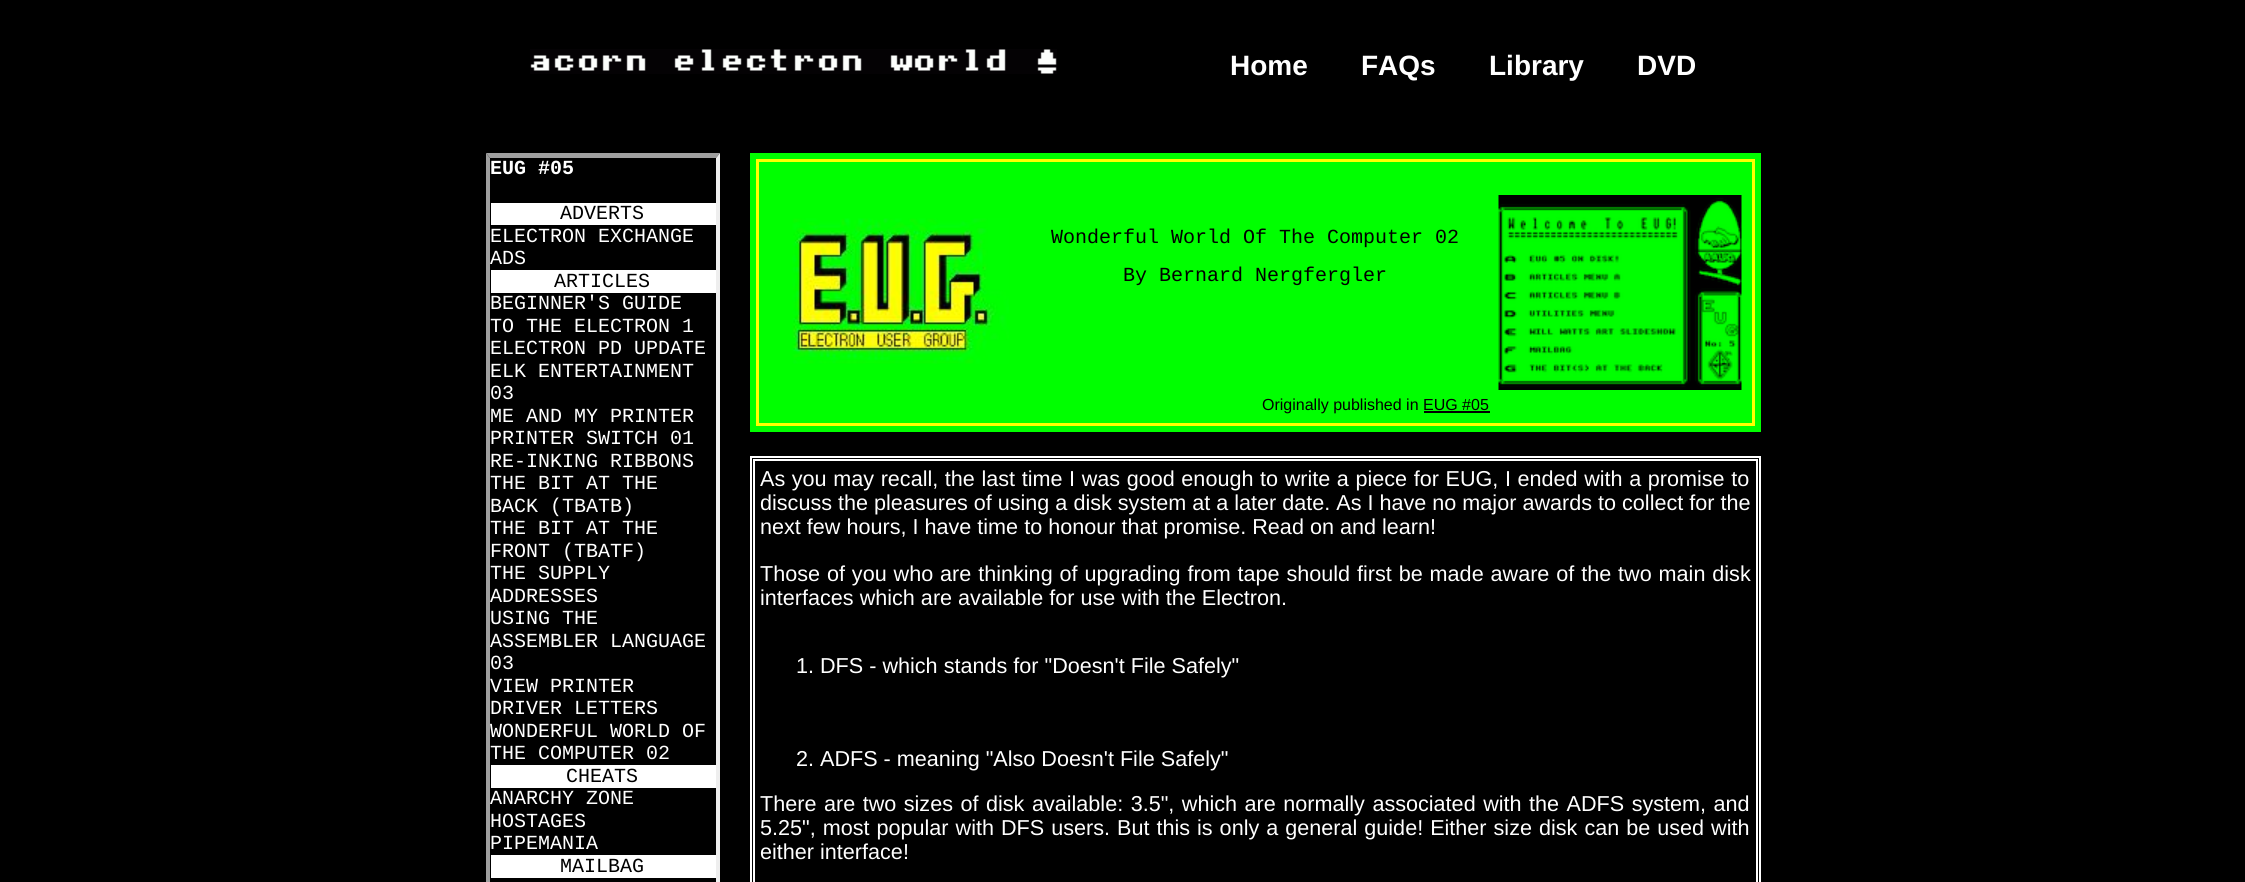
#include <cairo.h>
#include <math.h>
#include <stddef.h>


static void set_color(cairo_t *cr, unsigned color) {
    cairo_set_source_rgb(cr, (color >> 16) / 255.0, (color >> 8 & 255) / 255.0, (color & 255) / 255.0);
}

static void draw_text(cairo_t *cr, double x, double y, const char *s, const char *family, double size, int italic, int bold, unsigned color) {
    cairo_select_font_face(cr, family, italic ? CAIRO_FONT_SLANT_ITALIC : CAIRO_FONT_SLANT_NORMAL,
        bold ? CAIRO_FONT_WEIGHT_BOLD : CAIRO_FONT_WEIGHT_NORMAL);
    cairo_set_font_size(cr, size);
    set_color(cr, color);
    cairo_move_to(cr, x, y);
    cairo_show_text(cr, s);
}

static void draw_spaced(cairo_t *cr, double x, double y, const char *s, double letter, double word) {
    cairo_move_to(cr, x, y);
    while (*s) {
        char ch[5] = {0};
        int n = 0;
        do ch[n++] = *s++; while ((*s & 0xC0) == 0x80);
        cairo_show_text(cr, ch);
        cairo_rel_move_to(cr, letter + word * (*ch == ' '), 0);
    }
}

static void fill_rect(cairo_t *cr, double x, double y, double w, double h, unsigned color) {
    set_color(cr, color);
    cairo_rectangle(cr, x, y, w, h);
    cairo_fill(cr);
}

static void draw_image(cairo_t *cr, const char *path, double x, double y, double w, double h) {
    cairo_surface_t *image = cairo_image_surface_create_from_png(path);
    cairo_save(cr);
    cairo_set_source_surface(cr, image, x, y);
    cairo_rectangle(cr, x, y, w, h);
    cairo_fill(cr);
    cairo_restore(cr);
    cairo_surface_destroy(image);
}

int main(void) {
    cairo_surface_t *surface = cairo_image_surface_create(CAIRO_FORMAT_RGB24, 2245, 882);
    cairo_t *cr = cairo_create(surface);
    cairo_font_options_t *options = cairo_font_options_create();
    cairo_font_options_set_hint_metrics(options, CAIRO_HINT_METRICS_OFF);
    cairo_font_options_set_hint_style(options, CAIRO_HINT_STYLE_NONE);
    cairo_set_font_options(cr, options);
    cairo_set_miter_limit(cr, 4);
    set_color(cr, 0x000000);
    cairo_paint(cr);
    draw_image(cr, "assets/img1.png", 530, 49, 527, 25);
    draw_text(cr, 1230, 75, "Home", "Liberation Sans", 28, 0, 1, 0xFFFFFF);
    draw_text(cr, 1361, 75, "FAQs", "Liberation Sans", 28, 0, 1, 0xFFFFFF);
    draw_text(cr, 1489, 75, "Library", "Liberation Sans", 28, 0, 1, 0xFFFFFF);
    draw_text(cr, 1637, 75, "DVD", "Liberation Sans", 28, 0, 1, 0xFFFFFF);
    set_color(cr, 0x9F9F9F);
    cairo_new_path(cr);
    cairo_move_to(cr, 486, 153);
    cairo_line_to(cr, 720, 153);
    cairo_line_to(cr, 716, 158);
    cairo_line_to(cr, 490, 158);
    cairo_close_path(cr);
    cairo_fill(cr);
    set_color(cr, 0xEEEEEE);
    cairo_new_path(cr);
    cairo_move_to(cr, 720, 153);
    cairo_line_to(cr, 720, 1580);
    cairo_line_to(cr, 716, 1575);
    cairo_line_to(cr, 716, 158);
    cairo_close_path(cr);
    cairo_fill(cr);
    set_color(cr, 0x9F9F9F);
    cairo_new_path(cr);
    cairo_move_to(cr, 486, 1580);
    cairo_line_to(cr, 486, 153);
    cairo_line_to(cr, 490, 158);
    cairo_line_to(cr, 490, 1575);
    cairo_close_path(cr);
    cairo_fill(cr);
    draw_text(cr, 490, 174, "EUG #05", "Liberation Mono", 20, 0, 1, 0xFFFFFF);
    fill_rect(cr, 491, 203, 225, 22, 0xFFFFFF);
    draw_text(cr, 560, 219, "ADVERTS", "Liberation Mono", 20, 0, 0, 0x000000);
    draw_text(cr, 490, 242, "ELECTRON EXCHANGE", "Liberation Mono", 20, 0, 0, 0xFFFFFF);
    draw_text(cr, 490, 264, "ADS", "Liberation Mono", 20, 0, 0, 0xFFFFFF);
    fill_rect(cr, 491, 270, 225, 23, 0xFFFFFF);
    draw_text(cr, 554, 287, "ARTICLES", "Liberation Mono", 20, 0, 0, 0x000000);
    draw_text(cr, 490, 309, "BEGINNER'S GUIDE", "Liberation Mono", 20, 0, 0, 0xFFFFFF);
    draw_text(cr, 490, 332, "TO THE ELECTRON 1", "Liberation Mono", 20, 0, 0, 0xFFFFFF);
    draw_text(cr, 490, 354, "ELECTRON PD UPDATE", "Liberation Mono", 20, 0, 0, 0xFFFFFF);
    draw_text(cr, 490, 377, "ELK ENTERTAINMENT", "Liberation Mono", 20, 0, 0, 0xFFFFFF);
    draw_text(cr, 490, 399, "03", "Liberation Mono", 20, 0, 0, 0xFFFFFF);
    draw_text(cr, 490, 422, "ME AND MY PRINTER", "Liberation Mono", 20, 0, 0, 0xFFFFFF);
    draw_text(cr, 490, 444, "PRINTER SWITCH 01", "Liberation Mono", 20, 0, 0, 0xFFFFFF);
    draw_text(cr, 490, 467, "RE-INKING RIBBONS", "Liberation Mono", 20, 0, 0, 0xFFFFFF);
    draw_text(cr, 490, 489, "THE BIT AT THE", "Liberation Mono", 20, 0, 0, 0xFFFFFF);
    draw_text(cr, 490, 512, "BACK (TBATB)", "Liberation Mono", 20, 0, 0, 0xFFFFFF);
    draw_text(cr, 490, 534, "THE BIT AT THE", "Liberation Mono", 20, 0, 0, 0xFFFFFF);
    draw_text(cr, 490, 557, "FRONT (TBATF)", "Liberation Mono", 20, 0, 0, 0xFFFFFF);
    draw_text(cr, 490, 579, "THE SUPPLY", "Liberation Mono", 20, 0, 0, 0xFFFFFF);
    draw_text(cr, 490, 602, "ADDRESSES", "Liberation Mono", 20, 0, 0, 0xFFFFFF);
    draw_text(cr, 490, 624, "USING THE", "Liberation Mono", 20, 0, 0, 0xFFFFFF);
    draw_text(cr, 490, 647, "ASSEMBLER LANGUAGE", "Liberation Mono", 20, 0, 0, 0xFFFFFF);
    draw_text(cr, 490, 669, "03", "Liberation Mono", 20, 0, 0, 0xFFFFFF);
    draw_text(cr, 490, 692, "VIEW PRINTER", "Liberation Mono", 20, 0, 0, 0xFFFFFF);
    draw_text(cr, 490, 714, "DRIVER LETTERS", "Liberation Mono", 20, 0, 0, 0xFFFFFF);
    draw_text(cr, 490, 737, "WONDERFUL WORLD OF", "Liberation Mono", 20, 0, 0, 0xFFFFFF);
    draw_text(cr, 490, 759, "THE COMPUTER 02", "Liberation Mono", 20, 0, 0, 0xFFFFFF);
    fill_rect(cr, 491, 765, 225, 23, 0xFFFFFF);
    draw_text(cr, 566, 782, "CHEATS", "Liberation Mono", 20, 0, 0, 0x000000);
    draw_text(cr, 490, 804, "ANARCHY ZONE", "Liberation Mono", 20, 0, 0, 0xFFFFFF);
    draw_text(cr, 490, 827, "HOSTAGES", "Liberation Mono", 20, 0, 0, 0xFFFFFF);
    draw_text(cr, 490, 849, "PIPEMANIA", "Liberation Mono", 20, 0, 0, 0xFFFFFF);
    fill_rect(cr, 491, 855, 225, 23, 0xFFFFFF);
    draw_text(cr, 560, 872, "MAILBAG", "Liberation Mono", 20, 0, 0, 0x000000);
    fill_rect(cr, 750, 153, 1011, 279, 0x00FF00);
    cairo_rectangle(cr, 757.5, 160.5, 996, 264);
    set_color(cr, 0xFFFF00);
    cairo_set_line_width(cr, 3);
    cairo_stroke(cr);
    draw_image(cr, "assets/img2.png", 792, 218, 217, 146);
    draw_text(cr, 1051, 243, "Wonderful World Of The Computer 02", "Liberation Mono", 20, 0, 0, 0x000000);
    draw_text(cr, 1123, 281, "By Bernard Nergfergler", "Liberation Mono", 20, 0, 0, 0x000000);
    draw_image(cr, "assets/img3.png", 1498, 195, 244, 195);
    draw_text(cr, 1262, 410, "Originally published in EUG #05", "Liberation Sans", 16, 0, 0, 0x000000);
    fill_rect(cr, 1424, 411, 66, 2, 0x000000);
    cairo_rectangle(cr, 751, 457, 1009, 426);
    set_color(cr, 0xFFFFFF);
    cairo_set_line_width(cr, 2);
    cairo_stroke(cr);
    cairo_rectangle(cr, 754, 460, 1003, 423);
    cairo_stroke(cr);
    cairo_set_font_size(cr, 21.6);
    draw_spaced(cr, 760, 486, "As you may recall, the last time I was good enough to write a piece for EUG, I ended with a promise to", 0, 0.6);
    draw_text(cr, 760, 510, "discuss the pleasures of using a disk system at a later date. As I have no major awards to collect for the", "Liberation Sans", 21.6, 0, 0, 0xFFFFFF);
    draw_text(cr, 760, 534, "next few hours, I have time to honour that promise. Read on and learn!", "Liberation Sans", 21.6, 0, 0, 0xFFFFFF);
    draw_spaced(cr, 760, 581, "Those of you who are thinking of upgrading from tape should first be made aware of the two main disk", 0, 0.9);
    draw_text(cr, 760, 605, "interfaces which are available for use with the Electron.", "Liberation Sans", 21.6, 0, 0, 0xFFFFFF);
    draw_text(cr, 796, 673, "1. DFS - which stands for \"Doesn't File Safely\"", "Liberation Sans", 21.6, 0, 0, 0xFFFFFF);
    draw_text(cr, 796, 766, "2. ADFS - meaning \"Also Doesn't File Safely\"", "Liberation Sans", 21.6, 0, 0, 0xFFFFFF);
    draw_spaced(cr, 760, 811, "There are two sizes of disk available: 3.5\", which are normally associated with the ADFS system, and", 0, 1.5);
    draw_spaced(cr, 760, 835, "5.25\", most popular with DFS users. But this is only a general guide! Either size disk can be used with", 0, 1);
    draw_text(cr, 760, 859, "either interface!", "Liberation Sans", 21.6, 0, 0, 0xFFFFFF);
    cairo_surface_write_to_png(surface, "output.png");
    cairo_font_options_destroy(options);
    cairo_destroy(cr);
    cairo_surface_destroy(surface);
    return 0;
}
